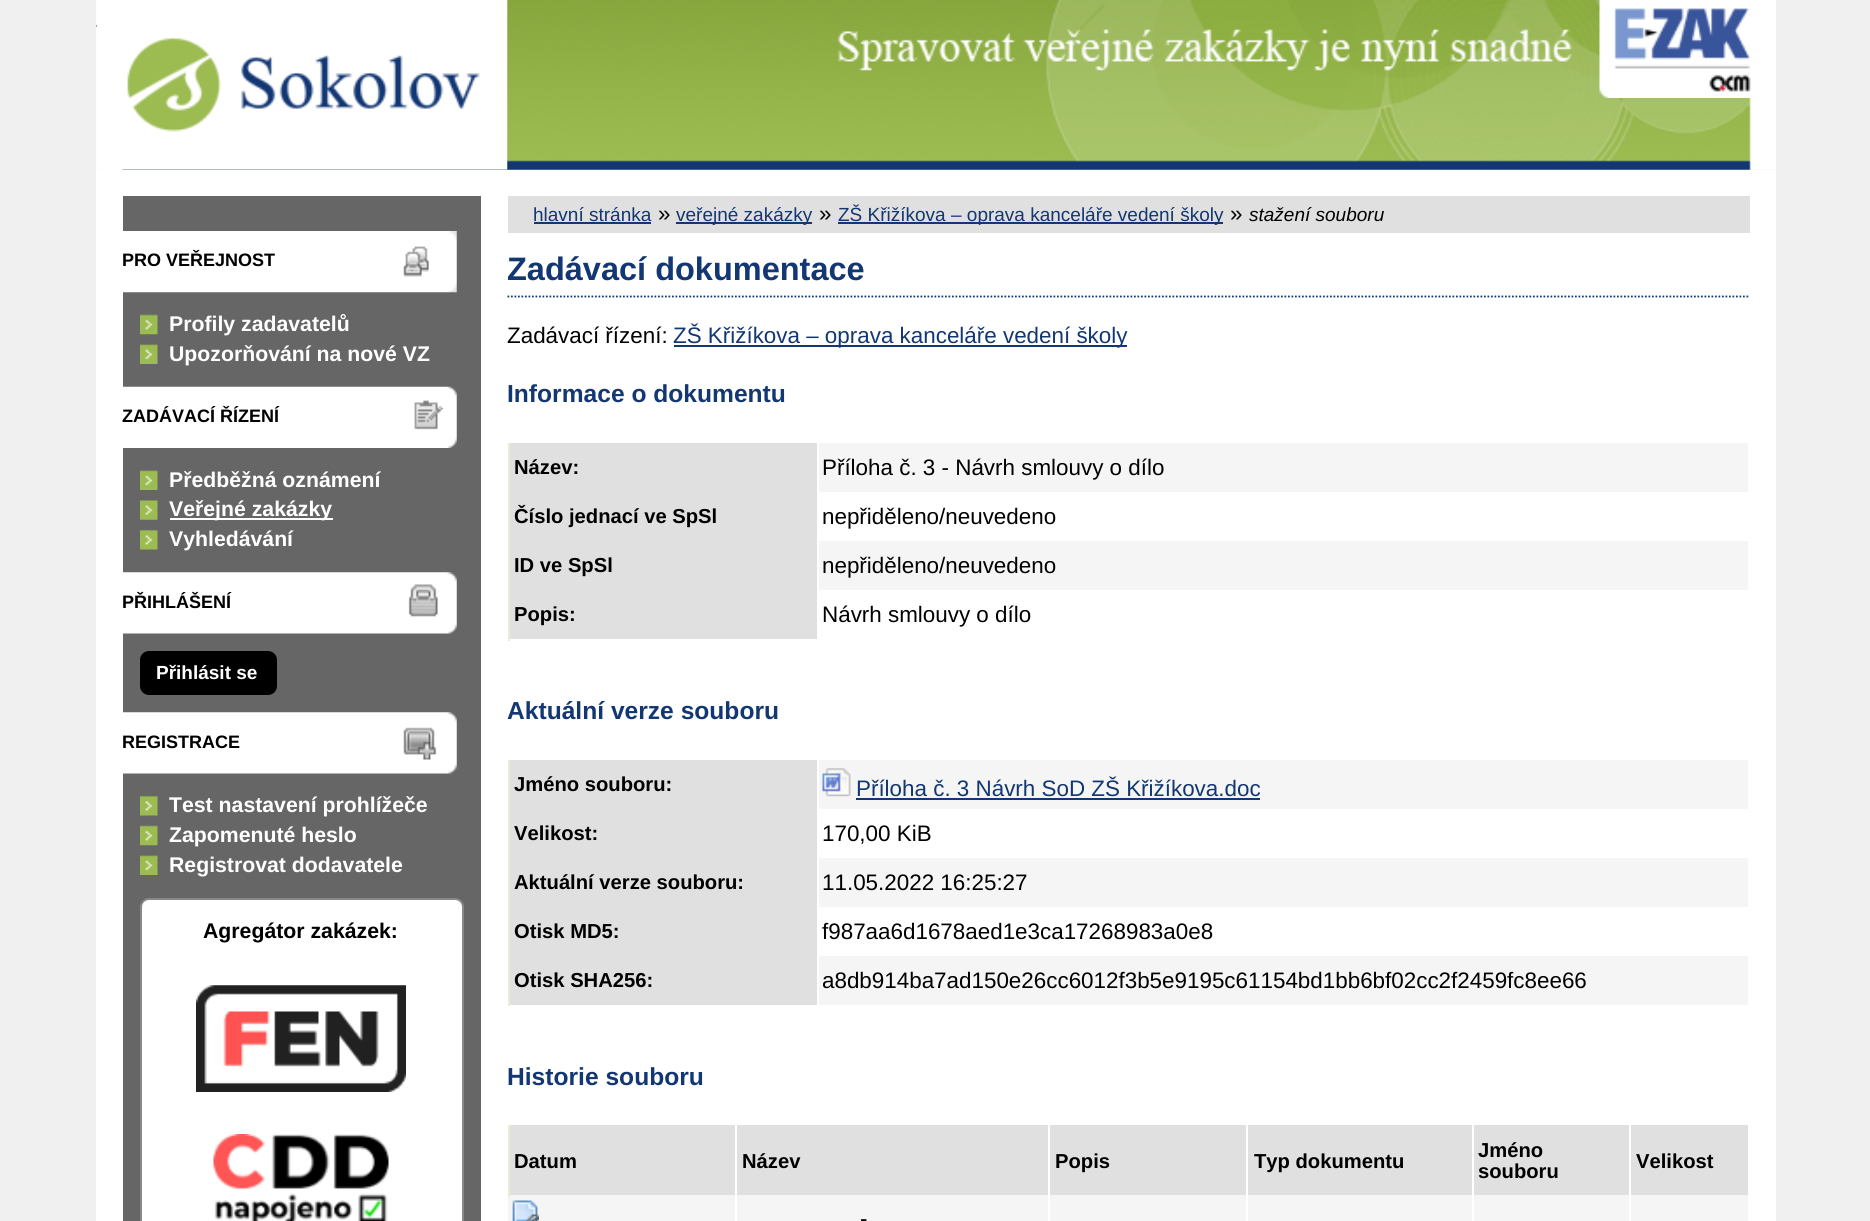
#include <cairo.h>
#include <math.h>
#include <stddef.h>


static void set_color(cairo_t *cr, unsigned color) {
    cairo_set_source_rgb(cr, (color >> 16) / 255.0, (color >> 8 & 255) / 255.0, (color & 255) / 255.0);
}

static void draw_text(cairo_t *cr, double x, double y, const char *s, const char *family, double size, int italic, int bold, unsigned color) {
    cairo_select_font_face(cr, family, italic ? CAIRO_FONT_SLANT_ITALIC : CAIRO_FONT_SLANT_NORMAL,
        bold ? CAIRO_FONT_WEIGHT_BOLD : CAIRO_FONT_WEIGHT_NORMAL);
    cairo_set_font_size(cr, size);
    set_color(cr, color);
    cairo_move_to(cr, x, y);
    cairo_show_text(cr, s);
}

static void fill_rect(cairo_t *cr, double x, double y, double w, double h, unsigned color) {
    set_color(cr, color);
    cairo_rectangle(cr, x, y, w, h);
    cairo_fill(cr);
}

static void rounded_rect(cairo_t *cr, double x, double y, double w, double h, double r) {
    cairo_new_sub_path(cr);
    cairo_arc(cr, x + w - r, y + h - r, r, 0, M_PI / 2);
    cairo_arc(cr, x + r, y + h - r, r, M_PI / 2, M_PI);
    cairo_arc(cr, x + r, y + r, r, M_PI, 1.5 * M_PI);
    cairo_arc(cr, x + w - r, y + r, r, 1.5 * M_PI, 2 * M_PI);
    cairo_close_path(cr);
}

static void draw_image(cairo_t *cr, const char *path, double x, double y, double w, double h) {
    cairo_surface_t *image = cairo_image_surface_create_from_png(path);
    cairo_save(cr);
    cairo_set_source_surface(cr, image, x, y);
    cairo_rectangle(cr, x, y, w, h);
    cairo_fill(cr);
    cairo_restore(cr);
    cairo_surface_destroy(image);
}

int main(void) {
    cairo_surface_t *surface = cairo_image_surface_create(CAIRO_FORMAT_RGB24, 1870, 1221);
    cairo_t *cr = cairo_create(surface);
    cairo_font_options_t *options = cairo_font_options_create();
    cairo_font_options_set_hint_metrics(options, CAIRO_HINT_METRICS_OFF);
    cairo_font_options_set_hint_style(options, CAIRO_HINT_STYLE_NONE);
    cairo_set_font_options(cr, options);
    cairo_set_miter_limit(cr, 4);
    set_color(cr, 0xF0F0F0);
    cairo_paint(cr);
    draw_image(cr, "assets/img1.png", 96, 0, 1680, 170);
    fill_rect(cr, 96, 25, 1, 2, 0x123773);
    draw_image(cr, "assets/img2.png", 96, 0, 412, 170);
    draw_image(cr, "assets/img3.png", 1599, 0, 152, 98);
    fill_rect(cr, 96, 170, 1680, 1051, 0xFFFFFF);
    fill_rect(cr, 123, 196, 358, 1025, 0x666666);
    draw_image(cr, "assets/img4.png", 123, 231, 334, 62);
    draw_text(cr, 122, 266, "PRO VEŘEJNOST", "Liberation Sans", 18, 0, 1, 0x000000);
    draw_image(cr, "assets/img5.png", 140, 314, 18, 21);
    draw_text(cr, 169, 331, "Profily zadavatelů", "Liberation Sans", 21.25, 0, 1, 0xFFFFFF);
    draw_image(cr, "assets/img6.png", 140, 344, 18, 20);
    draw_text(cr, 169, 361, "Upozorňování na nové VZ", "Liberation Sans", 21.25, 0, 1, 0xFFFFFF);
    draw_image(cr, "assets/img7.png", 123, 386, 334, 62);
    draw_text(cr, 122, 422, "ZADÁVACÍ ŘÍZENÍ", "Liberation Sans", 18, 0, 1, 0x000000);
    draw_image(cr, "assets/img6.png", 140, 470, 18, 20);
    draw_text(cr, 169, 487, "Předběžná oznámení", "Liberation Sans", 21.25, 0, 1, 0xFFFFFF);
    draw_image(cr, "assets/img8.png", 140, 500, 18, 20);
    fill_rect(cr, 170, 518, 163, 2, 0xFFFFFF);
    draw_text(cr, 169, 516, "Veřejné zakázky", "Liberation Sans", 21.25, 0, 1, 0xFFFFFF);
    draw_image(cr, "assets/img9.png", 140, 529, 18, 21);
    draw_text(cr, 169, 546, "Vyhledávání", "Liberation Sans", 21.25, 0, 1, 0xFFFFFF);
    draw_image(cr, "assets/img10.png", 123, 572, 334, 62);
    draw_text(cr, 122, 608, "PŘIHLÁŠENÍ", "Liberation Sans", 18, 0, 1, 0x000000);
    rounded_rect(cr, 140, 651, 137, 44, 9);
    cairo_fill(cr);
    draw_text(cr, 156, 679, "Přihlásit se", "Liberation Sans", 19, 0, 1, 0xFFFFFF);
    draw_image(cr, "assets/img11.png", 123, 712, 334, 62);
    draw_text(cr, 122, 748, "REGISTRACE", "Liberation Sans", 18, 0, 1, 0x000000);
    draw_image(cr, "assets/img9.png", 140, 795, 18, 21);
    draw_text(cr, 169, 812, "Test nastavení prohlížeče", "Liberation Sans", 21.25, 0, 1, 0xFFFFFF);
    draw_image(cr, "assets/img5.png", 140, 825, 18, 21);
    draw_text(cr, 169, 842, "Zapomenuté heslo", "Liberation Sans", 21.25, 0, 1, 0xFFFFFF);
    draw_image(cr, "assets/img6.png", 140, 855, 18, 20);
    draw_text(cr, 169, 872, "Registrovat dodavatele", "Liberation Sans", 21.25, 0, 1, 0xFFFFFF);
    rounded_rect(cr, 141, 899, 322, 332, 8);
    cairo_fill_preserve(cr);
    set_color(cr, 0x888888);
    cairo_stroke(cr);
    draw_text(cr, 203, 938, "Agregátor zakázek:", "Liberation Sans", 21.25, 0, 1, 0x000000);
    draw_image(cr, "assets/img12.png", 196, 985, 210, 107);
    draw_image(cr, "assets/img13.png", 213, 1134, 176, 87);
    fill_rect(cr, 508, 196, 1242, 37, 0xE0E0E0);
    draw_text(cr, 533, 221, "hlavní stránka", "Liberation Sans", 19, 0, 0, 0x123773);
    fill_rect(cr, 534, 222, 117, 2, 0x123773);
    draw_text(cr, 658, 221, "»", "Liberation Sans", 22.4, 0, 0, 0x000000);
    fill_rect(cr, 676, 222, 136, 2, 0x123773);
    draw_text(cr, 676, 221, "veřejné zakázky", "Liberation Sans", 19, 0, 0, 0x123773);
    draw_text(cr, 819, 221, "»", "Liberation Sans", 22.4, 0, 0, 0x000000);
    fill_rect(cr, 838, 222, 385, 2, 0x123773);
    draw_text(cr, 838, 221, "ZŠ Křižíkova – oprava kanceláře vedení školy", "Liberation Sans", 19, 0, 0, 0x123773);
    draw_text(cr, 1230, 221, "»", "Liberation Sans", 22.4, 0, 0, 0x000000);
    draw_text(cr, 1249, 221, "stažení souboru", "Liberation Sans", 19, 1, 0, 0x000000);
    cairo_new_path(cr);
    cairo_move_to(cr, 507.5, 296.5);
    cairo_line_to(cr, 1750, 296.5);
    set_color(cr, 0x123773);
    cairo_set_line_width(cr, 1.8);
    cairo_set_dash(cr, (double[]){1.75, 1.75}, 2, 0);
    cairo_stroke(cr);
    draw_text(cr, 507, 280, "Zadávací dokumentace", "Liberation Sans", 32.5, 0, 1, 0x123773);
    draw_text(cr, 507, 343, "Zadávací řízení:", "Liberation Sans", 22.4, 0, 0, 0x000000);
    fill_rect(cr, 674, 345, 453, 2, 0x123773);
    draw_text(cr, 673, 343, "ZŠ Křižíkova – oprava kanceláře vedení školy", "Liberation Sans", 22.4, 0, 0, 0x123773);
    draw_text(cr, 507, 402, "Informace o dokumentu", "Liberation Sans", 24.6, 0, 1, 0x123773);
    fill_rect(cr, 819, 443, 929, 49, 0xF5F5F5);
    fill_rect(cr, 510, 443, 307, 196, 0xE0E0E0);
    draw_text(cr, 514, 474, "Název:", "Liberation Sans", 20.2, 0, 1, 0x000000);
    draw_text(cr, 822, 475, "Příloha č. 3 - Návrh smlouvy o dílo", "Liberation Sans", 22.4, 0, 0, 0x000000);
    draw_text(cr, 514, 523, "Číslo jednací ve SpSl", "Liberation Sans", 20.2, 0, 1, 0x000000);
    draw_text(cr, 822, 524, "nepřiděleno/neuvedeno", "Liberation Sans", 22.4, 0, 0, 0x000000);
    fill_rect(cr, 819, 541, 929, 49, 0xF5F5F5);
    draw_text(cr, 514, 572, "ID ve SpSl", "Liberation Sans", 20.2, 0, 1, 0x000000);
    draw_text(cr, 822, 573, "nepřiděleno/neuvedeno", "Liberation Sans", 22.4, 0, 0, 0x000000);
    fill_rect(cr, 508, 443, 2, 198, 0xE7EFD6);
    draw_text(cr, 514, 621, "Popis:", "Liberation Sans", 20.2, 0, 1, 0x000000);
    draw_text(cr, 822, 622, "Návrh smlouvy o dílo", "Liberation Sans", 22.4, 0, 0, 0x000000);
    draw_text(cr, 507, 719, "Aktuální verze souboru", "Liberation Sans", 24.6, 0, 1, 0x123773);
    fill_rect(cr, 819, 760, 929, 49, 0xF5F5F5);
    fill_rect(cr, 510, 760, 307, 245, 0xE0E0E0);
    draw_text(cr, 514, 791, "Jméno souboru:", "Liberation Sans", 20.2, 0, 1, 0x000000);
    draw_image(cr, "assets/img14.png", 822, 768, 29, 29);
    draw_text(cr, 856, 796, "Příloha č. 3 Návrh SoD ZŠ Křižíkova.doc", "Liberation Sans", 22.4, 0, 0, 0x123773);
    fill_rect(cr, 856, 798, 404, 2, 0x123773);
    draw_text(cr, 514, 840, "Velikost:", "Liberation Sans", 20.2, 0, 1, 0x000000);
    draw_text(cr, 822, 841, "170,00 KiB", "Liberation Sans", 22.4, 0, 0, 0x000000);
    fill_rect(cr, 819, 858, 929, 49, 0xF5F5F5);
    draw_text(cr, 514, 889, "Aktuální verze souboru:", "Liberation Sans", 20.2, 0, 1, 0x000000);
    draw_text(cr, 822, 890, "11.05.2022 16:25:27", "Liberation Sans", 22.4, 0, 0, 0x000000);
    draw_text(cr, 514, 938, "Otisk MD5:", "Liberation Sans", 20.2, 0, 1, 0x000000);
    draw_text(cr, 822, 939, "f987aa6d1678aed1e3ca17268983a0e8", "Liberation Sans", 22.4, 0, 0, 0x000000);
    fill_rect(cr, 819, 956, 929, 49, 0xF5F5F5);
    fill_rect(cr, 508, 760, 2, 246, 0xE7EFD6);
    draw_text(cr, 514, 987, "Otisk SHA256:", "Liberation Sans", 20.2, 0, 1, 0x000000);
    draw_text(cr, 822, 988, "a8db914ba7ad150e26cc6012f3b5e9195c61154bd1bb6bf02cc2f2459fc8ee66", "Liberation Sans", 22.4, 0, 0, 0x000000);
    draw_text(cr, 507, 1085, "Historie souboru", "Liberation Sans", 24.6, 0, 1, 0x123773);
    fill_rect(cr, 510, 1125, 225, 70, 0xE0E0E0);
    fill_rect(cr, 508, 1195, 1240, 26, 0xF5F5F5);
    fill_rect(cr, 508, 1125, 2, 72, 0xE7EFD6);
    draw_text(cr, 514, 1168, "Datum", "Liberation Sans", 20.2, 0, 1, 0x000000);
    fill_rect(cr, 737, 1125, 311, 70, 0xE0E0E0);
    draw_text(cr, 742, 1168, "Název", "Liberation Sans", 20.2, 0, 1, 0x000000);
    fill_rect(cr, 1050, 1125, 196, 70, 0xE0E0E0);
    draw_text(cr, 1055, 1168, "Popis", "Liberation Sans", 20.2, 0, 1, 0x000000);
    fill_rect(cr, 1248, 1125, 224, 70, 0xE0E0E0);
    draw_text(cr, 1254, 1168, "Typ dokumentu", "Liberation Sans", 20.2, 0, 1, 0x000000);
    fill_rect(cr, 1474, 1125, 155, 70, 0xE0E0E0);
    draw_text(cr, 1478, 1157, "Jméno", "Liberation Sans", 20.2, 0, 1, 0x000000);
    draw_text(cr, 1478, 1178, "souboru", "Liberation Sans", 20.2, 0, 1, 0x000000);
    fill_rect(cr, 1631, 1125, 117, 70, 0xE0E0E0);
    draw_text(cr, 1636, 1168, "Velikost", "Liberation Sans", 20.2, 0, 1, 0x000000);
    fill_rect(cr, 735, 1195, 2, 26, 0xFFFFFF);
    draw_image(cr, "assets/img15.png", 512, 1200, 27, 21);
    fill_rect(cr, 1048, 1195, 2, 26, 0xFFFFFF);
    draw_text(cr, 860, 1226, "-", "Liberation Sans", 22.4, 0, 0, 0x000000);
    fill_rect(cr, 1246, 1195, 2, 26, 0xFFFFFF);
    fill_rect(cr, 1472, 1195, 2, 26, 0xFFFFFF);
    fill_rect(cr, 1629, 1195, 2, 26, 0xFFFFFF);
    cairo_surface_write_to_png(surface, "output.png");
    cairo_font_options_destroy(options);
    cairo_destroy(cr);
    cairo_surface_destroy(surface);
    return 0;
}
